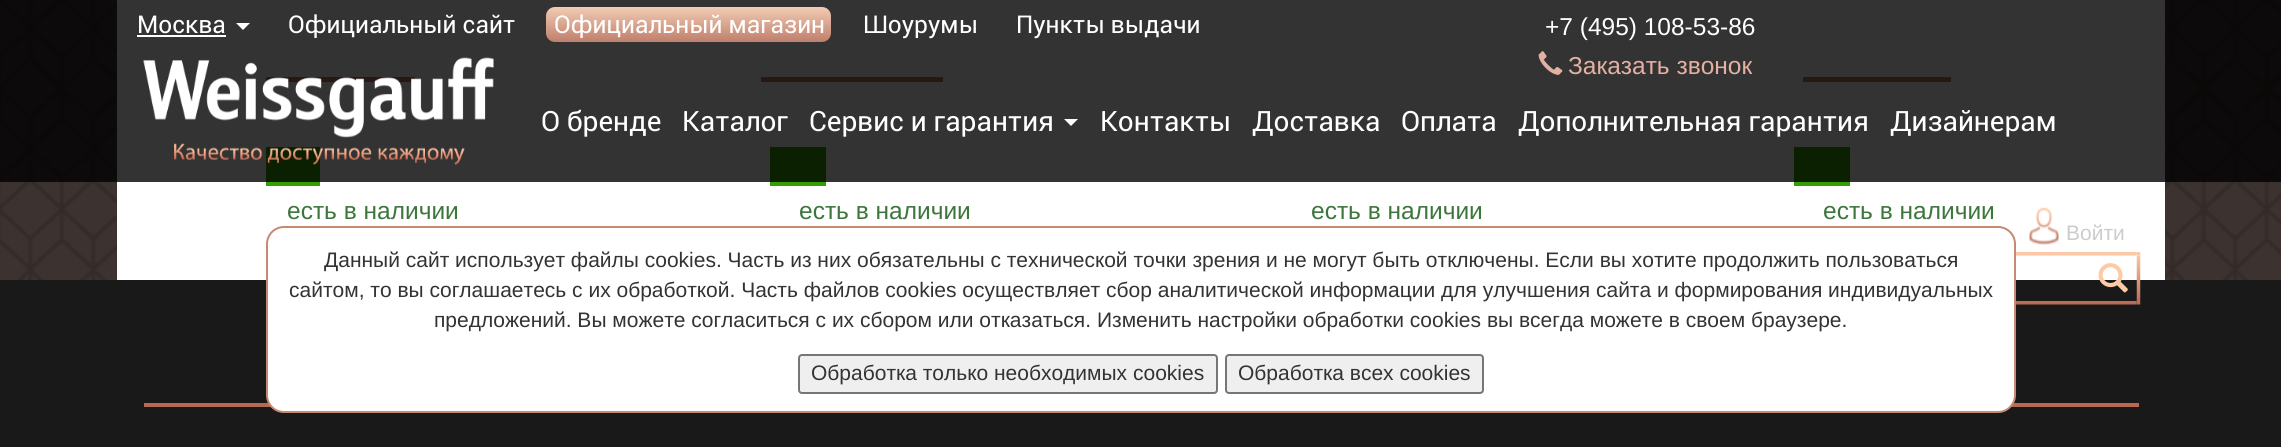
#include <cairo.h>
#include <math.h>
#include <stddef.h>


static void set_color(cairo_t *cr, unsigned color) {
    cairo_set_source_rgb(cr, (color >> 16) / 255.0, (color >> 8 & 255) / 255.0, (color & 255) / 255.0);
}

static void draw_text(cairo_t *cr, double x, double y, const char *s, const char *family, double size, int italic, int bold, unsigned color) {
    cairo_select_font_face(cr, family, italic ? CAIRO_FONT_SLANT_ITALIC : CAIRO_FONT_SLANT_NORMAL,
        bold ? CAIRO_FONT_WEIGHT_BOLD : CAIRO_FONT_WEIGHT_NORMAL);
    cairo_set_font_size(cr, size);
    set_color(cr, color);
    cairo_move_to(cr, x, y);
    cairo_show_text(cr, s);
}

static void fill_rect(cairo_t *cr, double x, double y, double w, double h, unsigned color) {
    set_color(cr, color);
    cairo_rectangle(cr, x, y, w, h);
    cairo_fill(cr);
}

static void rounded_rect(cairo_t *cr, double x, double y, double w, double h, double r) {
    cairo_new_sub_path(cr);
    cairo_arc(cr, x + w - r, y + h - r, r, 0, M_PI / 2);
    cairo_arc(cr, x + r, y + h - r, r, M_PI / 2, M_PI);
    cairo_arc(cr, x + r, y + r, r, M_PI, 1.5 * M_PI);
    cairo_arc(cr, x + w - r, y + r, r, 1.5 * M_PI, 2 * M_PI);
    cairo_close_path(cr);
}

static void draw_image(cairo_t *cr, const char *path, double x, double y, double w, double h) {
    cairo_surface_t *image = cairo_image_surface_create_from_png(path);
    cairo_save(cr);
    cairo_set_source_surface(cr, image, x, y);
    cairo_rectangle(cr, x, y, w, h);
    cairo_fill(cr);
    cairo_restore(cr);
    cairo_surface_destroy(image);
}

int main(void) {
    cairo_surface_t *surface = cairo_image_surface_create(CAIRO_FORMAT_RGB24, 2281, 447);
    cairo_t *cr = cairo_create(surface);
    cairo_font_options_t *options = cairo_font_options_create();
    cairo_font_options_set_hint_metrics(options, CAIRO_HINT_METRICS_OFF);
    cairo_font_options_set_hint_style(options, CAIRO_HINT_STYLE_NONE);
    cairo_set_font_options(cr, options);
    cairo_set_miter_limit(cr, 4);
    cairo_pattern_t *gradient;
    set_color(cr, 0x3C3230);
    cairo_paint(cr);
    draw_image(cr, "assets/img1.png", 0, 0, 2281, 280);
    fill_rect(cr, 117, 0, 2048, 280, 0xFFFFFF);
    fill_rect(cr, 266, 77, 149, 5, 0xC67158);
    fill_rect(cr, 266, 147, 54, 39, 0x359E00);
    fill_rect(cr, 761, 77, 182, 5, 0xC67158);
    fill_rect(cr, 770, 147, 56, 39, 0x359E00);
    fill_rect(cr, 1803, 77, 148, 5, 0xC67158);
    fill_rect(cr, 1794, 147, 56, 39, 0x359E00);
    cairo_set_source_rgba(cr, 0, 0, 0, 0.8);
    cairo_rectangle(cr, 0, 0, 2281, 182);
    cairo_fill(cr);
    draw_text(cr, 137, 33, "Москва", "Roboto", 24.5, 0, 0, 0xFFFFFF);
    fill_rect(cr, 137, 35, 89, 2, 0xFFFFFF);
    cairo_new_path(cr);
    cairo_move_to(cr, 236, 23);
    cairo_line_to(cr, 250, 23);
    cairo_line_to(cr, 243, 30);
    cairo_close_path(cr);
    cairo_fill(cr);
    draw_text(cr, 288, 33, "Официальный сайт", "Roboto", 24.5, 0, 0, 0xFFFFFF);
    gradient = cairo_pattern_create_linear(689, 42, 689, 7);
    cairo_pattern_add_color_stop_rgba(gradient, 0, 0.749, 0.498, 0.424, 1);
    cairo_pattern_add_color_stop_rgba(gradient, 1, 0.949, 0.8, 0.702, 1);
    cairo_set_source(cr, gradient);
    cairo_pattern_destroy(gradient);
    rounded_rect(cr, 546, 7, 285, 35, 9);
    cairo_fill(cr);
    draw_text(cr, 554, 33, "Официальный магазин", "Roboto", 24.5, 0, 0, 0xFFFFFF);
    draw_text(cr, 863, 33, "Шоурумы", "Roboto", 24.5, 0, 0, 0xFFFFFF);
    draw_text(cr, 1016, 33, "Пункты выдачи", "Roboto", 24.5, 0, 0, 0xFFFFFF);
    draw_text(cr, 1545, 35, "+7 (495) 108-53-86", "Liberation Sans", 24.5, 0, 0, 0xFFFFFF);
    draw_image(cr, "assets/img2.png", 1538, 51, 25, 24);
    draw_text(cr, 1568, 74, "Заказать звонок", "Liberation Sans", 24.5, 0, 0, 0xE4B0A1);
    draw_image(cr, "assets/img3.png", 143, 57, 351, 108);
    draw_text(cr, 541, 131, "О бренде", "Roboto", 28, 0, 0, 0xFFFFFF);
    draw_text(cr, 682, 131, "Каталог", "Roboto", 28, 0, 0, 0xFFFFFF);
    draw_text(cr, 809, 131, "Сервис и гарантия", "Roboto", 28, 0, 0, 0xFFFFFF);
    cairo_new_path(cr);
    cairo_move_to(cr, 1064, 119);
    cairo_line_to(cr, 1078, 119);
    cairo_line_to(cr, 1071, 126);
    cairo_close_path(cr);
    cairo_fill(cr);
    draw_text(cr, 1100, 131, "Контакты", "Roboto", 28, 0, 0, 0xFFFFFF);
    draw_text(cr, 1252, 131, "Доставка", "Roboto", 28, 0, 0, 0xFFFFFF);
    draw_text(cr, 1401, 131, "Оплата", "Roboto", 28, 0, 0, 0xFFFFFF);
    draw_text(cr, 1518, 131, "Дополнительная гарантия", "Roboto", 28, 0, 0, 0xFFFFFF);
    draw_text(cr, 1890, 131, "Дизайнерам", "Roboto", 28, 0, 0, 0xFFFFFF);
    draw_image(cr, "assets/img4.png", 2029, 207, 30, 38);
    draw_text(cr, 2066, 240, "Войти", "Liberation Sans", 21, 0, 0, 0xCCCCCC);
    fill_rect(cr, 0, 280, 2281, 167, 0x191919);
    draw_image(cr, "assets/img5.png", 2016, 252, 125, 53);
    draw_image(cr, "assets/img6.png", 2098, 263, 30, 30);
    draw_text(cr, 287, 219, "есть в наличии", "Liberation Sans", 24.5, 0, 0, 0x3C763D);
    draw_text(cr, 799, 219, "есть в наличии", "Liberation Sans", 24.5, 0, 0, 0x3C763D);
    draw_text(cr, 1311, 219, "есть в наличии", "Liberation Sans", 24.5, 0, 0, 0x3C763D);
    draw_text(cr, 1823, 219, "есть в наличии", "Liberation Sans", 24.5, 0, 0, 0x3C763D);
    fill_rect(cr, 144, 403, 127, 4, 0xB66A54);
    fill_rect(cr, 2011, 403, 128, 4, 0xB66A54);
    set_color(cr, 0xFFFFFF);
    rounded_rect(cr, 267, 227, 1748, 185, 17);
    cairo_fill_preserve(cr);
    set_color(cr, 0xC68975);
    cairo_stroke(cr);
    draw_text(cr, 324, 267, "Данный сайт использует файлы cookies. Часть из них обязательны с технической точки зрения и не могут быть отключены. Если вы хотите продолжить пользоваться", "Liberation Sans", 21, 0, 0, 0x333333);
    draw_text(cr, 289, 297, "сайтом, то вы соглашаетесь с их обработкой. Часть файлов cookies осуществляет сбор аналитической информации для улучшения сайта и формирования индивидуальных", "Liberation Sans", 21, 0, 0, 0x333333);
    draw_text(cr, 434, 327, "предложений. Вы можете согласиться с их сбором или отказаться. Изменить настройки обработки cookies вы всегда можете в своем браузере.", "Liberation Sans", 21, 0, 0, 0x333333);
    set_color(cr, 0xEFEFEF);
    rounded_rect(cr, 799, 355, 418, 38, 3);
    cairo_fill_preserve(cr);
    set_color(cr, 0x767676);
    cairo_stroke(cr);
    draw_text(cr, 811, 380, "Обработка только необходимых cookies", "Liberation Sans", 21, 0, 0, 0x333333);
    set_color(cr, 0xEFEFEF);
    rounded_rect(cr, 1226, 355, 257, 38, 3);
    cairo_fill_preserve(cr);
    set_color(cr, 0x767676);
    cairo_stroke(cr);
    draw_text(cr, 1238, 380, "Обработка всех cookies", "Liberation Sans", 21, 0, 0, 0x333333);
    cairo_surface_write_to_png(surface, "output.png");
    cairo_font_options_destroy(options);
    cairo_destroy(cr);
    cairo_surface_destroy(surface);
    return 0;
}
